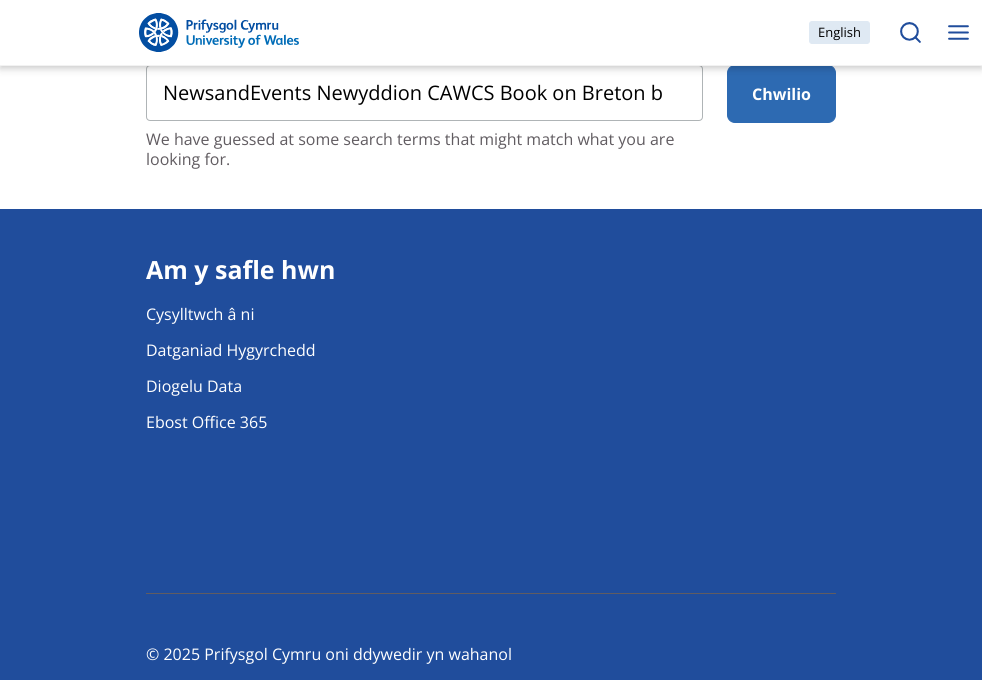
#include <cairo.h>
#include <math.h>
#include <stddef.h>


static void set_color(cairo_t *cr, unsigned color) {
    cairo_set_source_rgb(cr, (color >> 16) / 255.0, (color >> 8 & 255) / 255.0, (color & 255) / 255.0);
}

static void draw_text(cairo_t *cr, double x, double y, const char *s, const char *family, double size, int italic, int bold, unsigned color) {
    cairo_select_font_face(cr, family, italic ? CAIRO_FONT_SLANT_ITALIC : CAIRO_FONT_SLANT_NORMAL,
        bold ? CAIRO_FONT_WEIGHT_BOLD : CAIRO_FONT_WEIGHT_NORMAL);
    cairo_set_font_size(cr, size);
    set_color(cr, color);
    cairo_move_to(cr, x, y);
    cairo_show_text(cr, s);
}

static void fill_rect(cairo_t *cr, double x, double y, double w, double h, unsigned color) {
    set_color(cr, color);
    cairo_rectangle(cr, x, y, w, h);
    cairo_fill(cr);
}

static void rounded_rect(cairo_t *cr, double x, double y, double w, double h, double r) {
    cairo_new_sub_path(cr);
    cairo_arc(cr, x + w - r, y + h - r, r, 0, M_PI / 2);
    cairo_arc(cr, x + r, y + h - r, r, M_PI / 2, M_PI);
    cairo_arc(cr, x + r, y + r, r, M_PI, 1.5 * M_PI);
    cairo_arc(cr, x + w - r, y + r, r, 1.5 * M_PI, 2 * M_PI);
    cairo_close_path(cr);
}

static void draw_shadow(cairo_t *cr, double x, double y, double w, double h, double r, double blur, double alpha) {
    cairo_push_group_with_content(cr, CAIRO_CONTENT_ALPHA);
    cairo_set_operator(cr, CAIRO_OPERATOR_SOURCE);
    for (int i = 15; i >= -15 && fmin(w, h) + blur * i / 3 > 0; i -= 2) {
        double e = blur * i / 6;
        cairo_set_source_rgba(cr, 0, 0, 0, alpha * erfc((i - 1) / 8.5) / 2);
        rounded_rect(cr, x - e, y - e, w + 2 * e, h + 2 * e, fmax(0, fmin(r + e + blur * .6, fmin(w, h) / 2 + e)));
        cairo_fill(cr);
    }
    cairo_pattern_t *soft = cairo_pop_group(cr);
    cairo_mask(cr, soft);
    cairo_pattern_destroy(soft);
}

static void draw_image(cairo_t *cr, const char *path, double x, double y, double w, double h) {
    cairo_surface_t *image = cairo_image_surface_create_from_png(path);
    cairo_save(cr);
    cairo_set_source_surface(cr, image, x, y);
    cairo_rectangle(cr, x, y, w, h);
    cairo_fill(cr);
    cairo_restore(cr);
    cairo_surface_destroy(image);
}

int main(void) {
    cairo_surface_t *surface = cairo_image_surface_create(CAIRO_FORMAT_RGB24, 982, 680);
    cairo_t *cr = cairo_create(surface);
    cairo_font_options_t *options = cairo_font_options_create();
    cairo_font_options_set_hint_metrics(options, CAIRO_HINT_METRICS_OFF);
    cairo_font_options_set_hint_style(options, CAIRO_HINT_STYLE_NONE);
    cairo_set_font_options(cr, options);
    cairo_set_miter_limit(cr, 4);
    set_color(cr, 0xFFFFFF);
    cairo_paint(cr);
    rounded_rect(cr, 146.5, 65.5, 556, 55, 3.5);
    set_color(cr, 0xAFB4B6);
    cairo_set_line_width(cr, 1);
    cairo_stroke(cr);
    set_color(cr, 0x2D6AB2);
    rounded_rect(cr, 727.5, 65.5, 108, 57, 7.5);
    cairo_fill_preserve(cr);
    cairo_stroke(cr);
    set_color(cr, 0x000000);
    draw_shadow(cr, 0, 2, 982, 66, 0, 2, 0.08);
    draw_shadow(cr, 0, 4, 982, 66, 0, 4, 0.12);
    fill_rect(cr, 0, 65, 982, 1, 0xF2F2F2);
    fill_rect(cr, 0, 0, 982, 65, 0xFFFFFF);
    draw_image(cr, "assets/img1.png", 139, 13, 160, 39);
    set_color(cr, 0xDFE9F3);
    rounded_rect(cr, 809.5, 21.5, 60, 22, 2.5);
    cairo_fill_preserve(cr);
    cairo_stroke(cr);
    draw_text(cr, 818, 37, "English", "Open Sans", 13, 0, 0, 0x000000);
    draw_image(cr, "assets/img2.png", 900, 22, 21, 21);
    draw_image(cr, "assets/img3.png", 948, 25, 21, 15);
    draw_text(cr, 163, 100, "NewsandEvents Newyddion CAWCS Book on Breton b", "Open Sans", 20, 0, 0, 0x000000);
    draw_text(cr, 146, 145, "We have guessed at some search terms that might match what you are", "Open Sans", 16, 0, 0, 0x615C61);
    draw_text(cr, 146, 165, "looking for.", "Open Sans", 16, 0, 0, 0x615C61);
    draw_text(cr, 752, 100, "Chwilio", "Open Sans", 16, 0, 1, 0xFFFFFF);
    fill_rect(cr, 0, 209, 982, 471, 0x204D9C);
    draw_text(cr, 146, 279, "Am y safle hwn", "Open Sans", 25, 0, 1, 0xFFFFFF);
    draw_text(cr, 146, 320, "Cysylltwch â ni", "Open Sans", 16, 0, 0, 0xFFFFFF);
    draw_text(cr, 146, 356, "Datganiad Hygyrchedd", "Open Sans", 16, 0, 0, 0xFFFFFF);
    draw_text(cr, 146, 392, "Diogelu Data", "Open Sans", 16, 0, 0, 0xFFFFFF);
    draw_text(cr, 146, 428, "Ebost Office 365", "Open Sans", 16, 0, 0, 0xFFFFFF);
    fill_rect(cr, 146, 593, 690, 1, 0x615C61);
    draw_text(cr, 146, 660, "© 2025 Prifysgol Cymru oni ddywedir yn wahanol", "Open Sans", 16, 0, 0, 0xFFFFFF);
    cairo_surface_write_to_png(surface, "output.png");
    cairo_font_options_destroy(options);
    cairo_destroy(cr);
    cairo_surface_destroy(surface);
    return 0;
}
